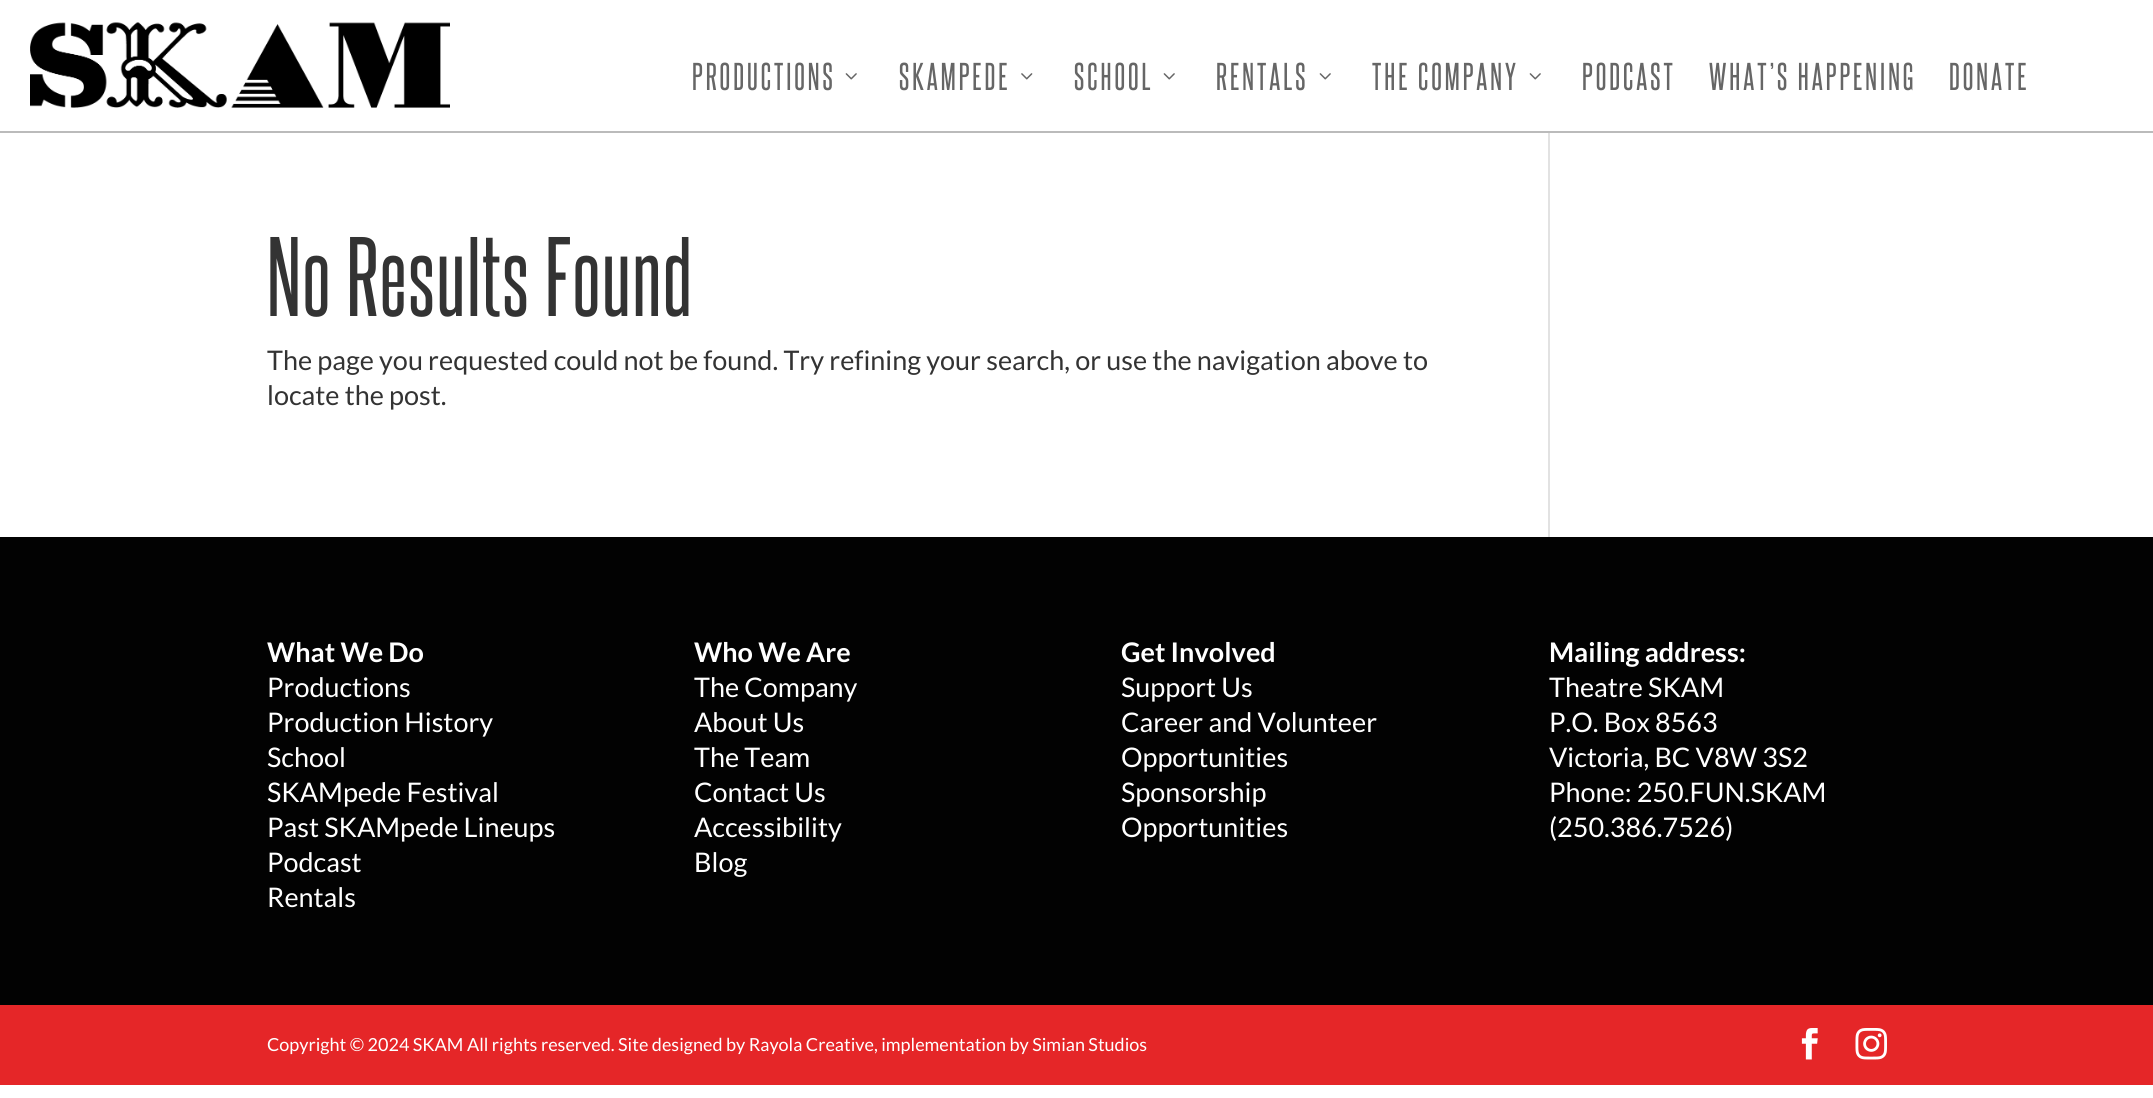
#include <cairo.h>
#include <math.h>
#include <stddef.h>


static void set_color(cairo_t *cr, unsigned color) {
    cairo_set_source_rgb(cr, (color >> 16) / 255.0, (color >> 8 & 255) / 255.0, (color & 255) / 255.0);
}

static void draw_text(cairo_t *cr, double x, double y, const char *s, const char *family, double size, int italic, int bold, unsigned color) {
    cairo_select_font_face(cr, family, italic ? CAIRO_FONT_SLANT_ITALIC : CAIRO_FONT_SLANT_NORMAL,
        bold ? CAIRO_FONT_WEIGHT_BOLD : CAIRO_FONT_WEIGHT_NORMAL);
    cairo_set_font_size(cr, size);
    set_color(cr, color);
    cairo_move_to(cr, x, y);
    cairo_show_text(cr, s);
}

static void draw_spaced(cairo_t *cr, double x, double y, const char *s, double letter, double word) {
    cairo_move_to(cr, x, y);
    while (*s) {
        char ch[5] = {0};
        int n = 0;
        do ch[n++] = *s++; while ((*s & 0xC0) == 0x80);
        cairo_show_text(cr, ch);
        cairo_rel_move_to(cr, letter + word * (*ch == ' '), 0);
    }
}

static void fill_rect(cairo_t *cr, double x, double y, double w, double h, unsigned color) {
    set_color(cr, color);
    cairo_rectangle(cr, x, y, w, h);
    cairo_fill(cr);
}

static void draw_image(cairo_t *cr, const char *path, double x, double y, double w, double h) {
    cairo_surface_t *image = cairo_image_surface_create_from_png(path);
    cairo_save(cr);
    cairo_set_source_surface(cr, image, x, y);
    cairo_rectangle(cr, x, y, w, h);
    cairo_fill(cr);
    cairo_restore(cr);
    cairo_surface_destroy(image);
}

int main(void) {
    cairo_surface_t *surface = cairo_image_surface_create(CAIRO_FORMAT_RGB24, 2153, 1098);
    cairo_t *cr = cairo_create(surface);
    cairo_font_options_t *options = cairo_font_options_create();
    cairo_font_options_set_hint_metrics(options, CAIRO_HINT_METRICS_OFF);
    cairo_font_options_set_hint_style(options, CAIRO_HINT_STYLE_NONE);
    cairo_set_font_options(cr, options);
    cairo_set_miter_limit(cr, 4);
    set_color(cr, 0xFFFFFF);
    cairo_paint(cr);
    fill_rect(cr, 1548, 132, 2, 405, 0xE2E2E2);
    fill_rect(cr, 0, 131, 2153, 2, 0xBBBBBB);
    draw_image(cr, "assets/img1.png", 30, 22, 420, 86);
    cairo_select_font_face(cr, "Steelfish", CAIRO_FONT_SLANT_NORMAL, CAIRO_FONT_WEIGHT_NORMAL);
    cairo_set_font_size(cr, 33);
    set_color(cr, 0x666666);
    draw_spaced(cr, 692, 90, "PRODUCTIONS", 3, 0);
    draw_image(cr, "assets/img2.png", 845, 73, 12, 7);
    draw_spaced(cr, 899, 90, "SKAMPEDE", 3, 0);
    draw_image(cr, "assets/img3.png", 1021, 73, 12, 7);
    draw_spaced(cr, 1074, 90, "SCHOOL", 3, 0);
    draw_image(cr, "assets/img2.png", 1163, 73, 12, 7);
    draw_spaced(cr, 1216, 90, "RENTALS", 3, 0);
    draw_image(cr, "assets/img2.png", 1319, 73, 12, 7);
    draw_spaced(cr, 1372, 90, "THE COMPANY", 3, 0);
    draw_image(cr, "assets/img2.png", 1529, 73, 12, 7);
    draw_spaced(cr, 1582, 90, "PODCAST", 3, 0);
    draw_spaced(cr, 1709, 90, "WHAT’S HAPPENING", 3, 0);
    draw_spaced(cr, 1949, 90, "DONATE", 3, 0);
    cairo_set_font_size(cr, 96);
    set_color(cr, 0x333333);
    draw_spaced(cr, 267, 316, "No Results Found", 1.5, 0);
    draw_text(cr, 267, 370, "The page you requested could not be found. Try refining your search, or use the navigation above to", "Lato", 27, 0, 0, 0x333333);
    draw_text(cr, 267, 405, "locate the post.", "Lato", 27, 0, 0, 0x333333);
    fill_rect(cr, 0, 537, 2153, 468, 0x020202);
    draw_text(cr, 267, 662, "What We Do", "Lato", 27, 0, 1, 0xFFFFFF);
    draw_text(cr, 267, 697, "Productions", "Lato", 27, 0, 0, 0xFFFFFF);
    draw_text(cr, 267, 732, "Production History", "Lato", 27, 0, 0, 0xFFFFFF);
    draw_text(cr, 267, 767, "School", "Lato", 27, 0, 0, 0xFFFFFF);
    draw_text(cr, 267, 802, "SKAMpede Festival", "Lato", 27, 0, 0, 0xFFFFFF);
    draw_text(cr, 267, 837, "Past SKAMpede Lineups", "Lato", 27, 0, 0, 0xFFFFFF);
    draw_text(cr, 267, 872, "Podcast", "Lato", 27, 0, 0, 0xFFFFFF);
    draw_text(cr, 267, 907, "Rentals", "Lato", 27, 0, 0, 0xFFFFFF);
    draw_text(cr, 694, 662, "Who We Are", "Lato", 27, 0, 1, 0xFFFFFF);
    draw_text(cr, 694, 697, "The Company", "Lato", 27, 0, 0, 0xFFFFFF);
    draw_text(cr, 694, 732, "About Us", "Lato", 27, 0, 0, 0xFFFFFF);
    draw_text(cr, 694, 767, "The Team", "Lato", 27, 0, 0, 0xFFFFFF);
    draw_text(cr, 694, 802, "Contact Us", "Lato", 27, 0, 0, 0xFFFFFF);
    draw_text(cr, 694, 837, "Accessibility", "Lato", 27, 0, 0, 0xFFFFFF);
    draw_text(cr, 694, 872, "Blog", "Lato", 27, 0, 0, 0xFFFFFF);
    draw_text(cr, 1121, 662, "Get Involved", "Lato", 27, 0, 1, 0xFFFFFF);
    draw_text(cr, 1121, 697, "Support Us", "Lato", 27, 0, 0, 0xFFFFFF);
    draw_text(cr, 1121, 732, "Career and Volunteer", "Lato", 27, 0, 0, 0xFFFFFF);
    draw_text(cr, 1121, 767, "Opportunities", "Lato", 27, 0, 0, 0xFFFFFF);
    draw_text(cr, 1121, 802, "Sponsorship", "Lato", 27, 0, 0, 0xFFFFFF);
    draw_text(cr, 1121, 837, "Opportunities", "Lato", 27, 0, 0, 0xFFFFFF);
    draw_text(cr, 1549, 662, "Mailing address:", "Lato", 27, 0, 1, 0xFFFFFF);
    draw_text(cr, 1549, 697, "Theatre SKAM", "Lato", 27, 0, 0, 0xFFFFFF);
    draw_text(cr, 1549, 732, "P.O. Box 8563", "Lato", 27, 0, 0, 0xFFFFFF);
    draw_text(cr, 1549, 767, "Victoria, BC V8W 3S2", "Lato", 27, 0, 0, 0xFFFFFF);
    draw_text(cr, 1549, 802, "Phone: 250.FUN.SKAM", "Lato", 27, 0, 0, 0xFFFFFF);
    draw_text(cr, 1549, 837, "(250.386.7526)", "Lato", 27, 0, 0, 0xFFFFFF);
    fill_rect(cr, 0, 1005, 2153, 80, 0xE52628);
    draw_text(cr, 267, 1051, "Copyright © 2024 SKAM All rights reserved. Site designed by Rayola Creative, implementation by Simian Studios", "Lato", 18, 0, 0, 0xFFFFFF);
    draw_image(cr, "assets/img4.png", 1801, 1028, 17, 32);
    draw_image(cr, "assets/img5.png", 1855, 1028, 32, 32);
    cairo_surface_write_to_png(surface, "output.png");
    cairo_font_options_destroy(options);
    cairo_destroy(cr);
    cairo_surface_destroy(surface);
    return 0;
}
